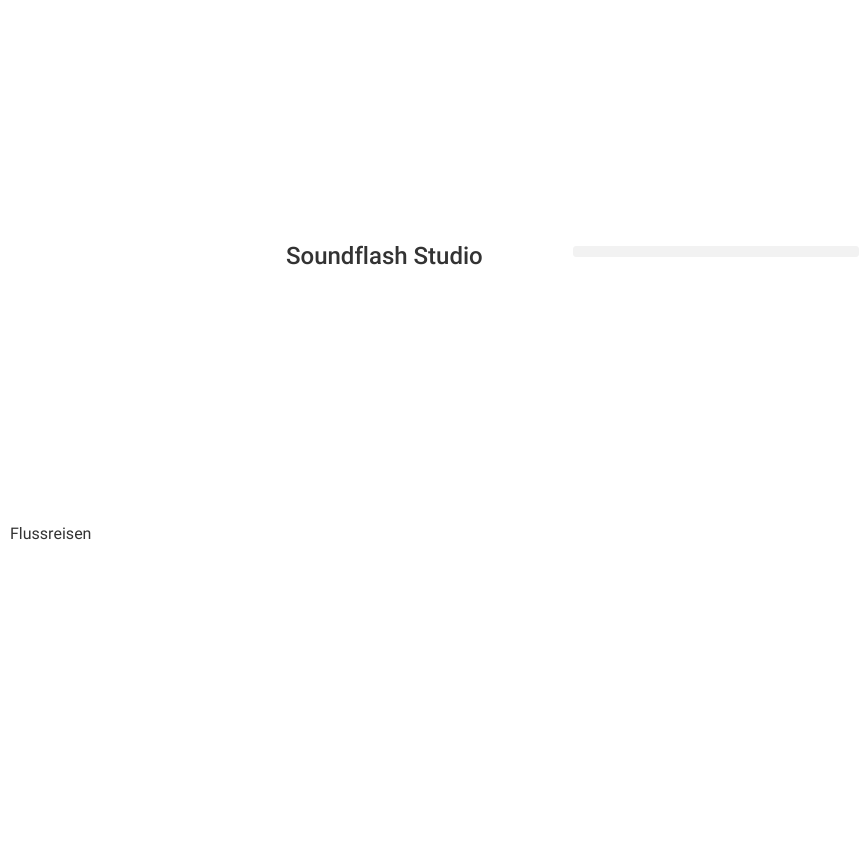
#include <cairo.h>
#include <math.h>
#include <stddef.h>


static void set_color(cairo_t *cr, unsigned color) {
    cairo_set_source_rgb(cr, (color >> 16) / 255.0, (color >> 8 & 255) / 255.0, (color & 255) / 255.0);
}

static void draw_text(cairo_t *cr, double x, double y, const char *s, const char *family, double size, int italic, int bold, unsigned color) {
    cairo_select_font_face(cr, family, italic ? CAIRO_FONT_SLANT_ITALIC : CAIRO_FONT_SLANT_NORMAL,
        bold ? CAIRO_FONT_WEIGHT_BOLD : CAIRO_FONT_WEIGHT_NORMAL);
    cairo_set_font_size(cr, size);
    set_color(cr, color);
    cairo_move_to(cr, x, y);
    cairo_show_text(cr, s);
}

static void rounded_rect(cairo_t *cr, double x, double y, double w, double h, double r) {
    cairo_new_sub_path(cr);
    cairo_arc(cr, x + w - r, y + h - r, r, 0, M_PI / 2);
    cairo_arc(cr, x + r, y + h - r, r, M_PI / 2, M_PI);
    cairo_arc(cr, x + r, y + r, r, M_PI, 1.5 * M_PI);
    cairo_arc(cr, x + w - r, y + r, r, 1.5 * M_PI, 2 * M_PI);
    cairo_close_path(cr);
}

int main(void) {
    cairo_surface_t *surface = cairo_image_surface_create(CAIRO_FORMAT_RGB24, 859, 847);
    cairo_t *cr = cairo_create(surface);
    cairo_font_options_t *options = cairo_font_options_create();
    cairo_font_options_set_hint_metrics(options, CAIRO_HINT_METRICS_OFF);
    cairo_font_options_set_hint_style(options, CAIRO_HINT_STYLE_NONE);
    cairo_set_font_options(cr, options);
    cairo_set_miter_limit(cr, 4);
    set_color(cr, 0xFFFFFF);
    cairo_paint(cr);
    draw_text(cr, 286, 264, "Soundflash Studio", "Roboto Medium", 24, 0, 0, 0x333333);
    set_color(cr, 0xF2F2F2);
    rounded_rect(cr, 573, 246, 286, 11, 3);
    cairo_fill(cr);
    draw_text(cr, 10, 539, "Flussreisen", "Roboto", 16, 0, 0, 0x333333);
    cairo_surface_write_to_png(surface, "output.png");
    cairo_font_options_destroy(options);
    cairo_destroy(cr);
    cairo_surface_destroy(surface);
    return 0;
}
